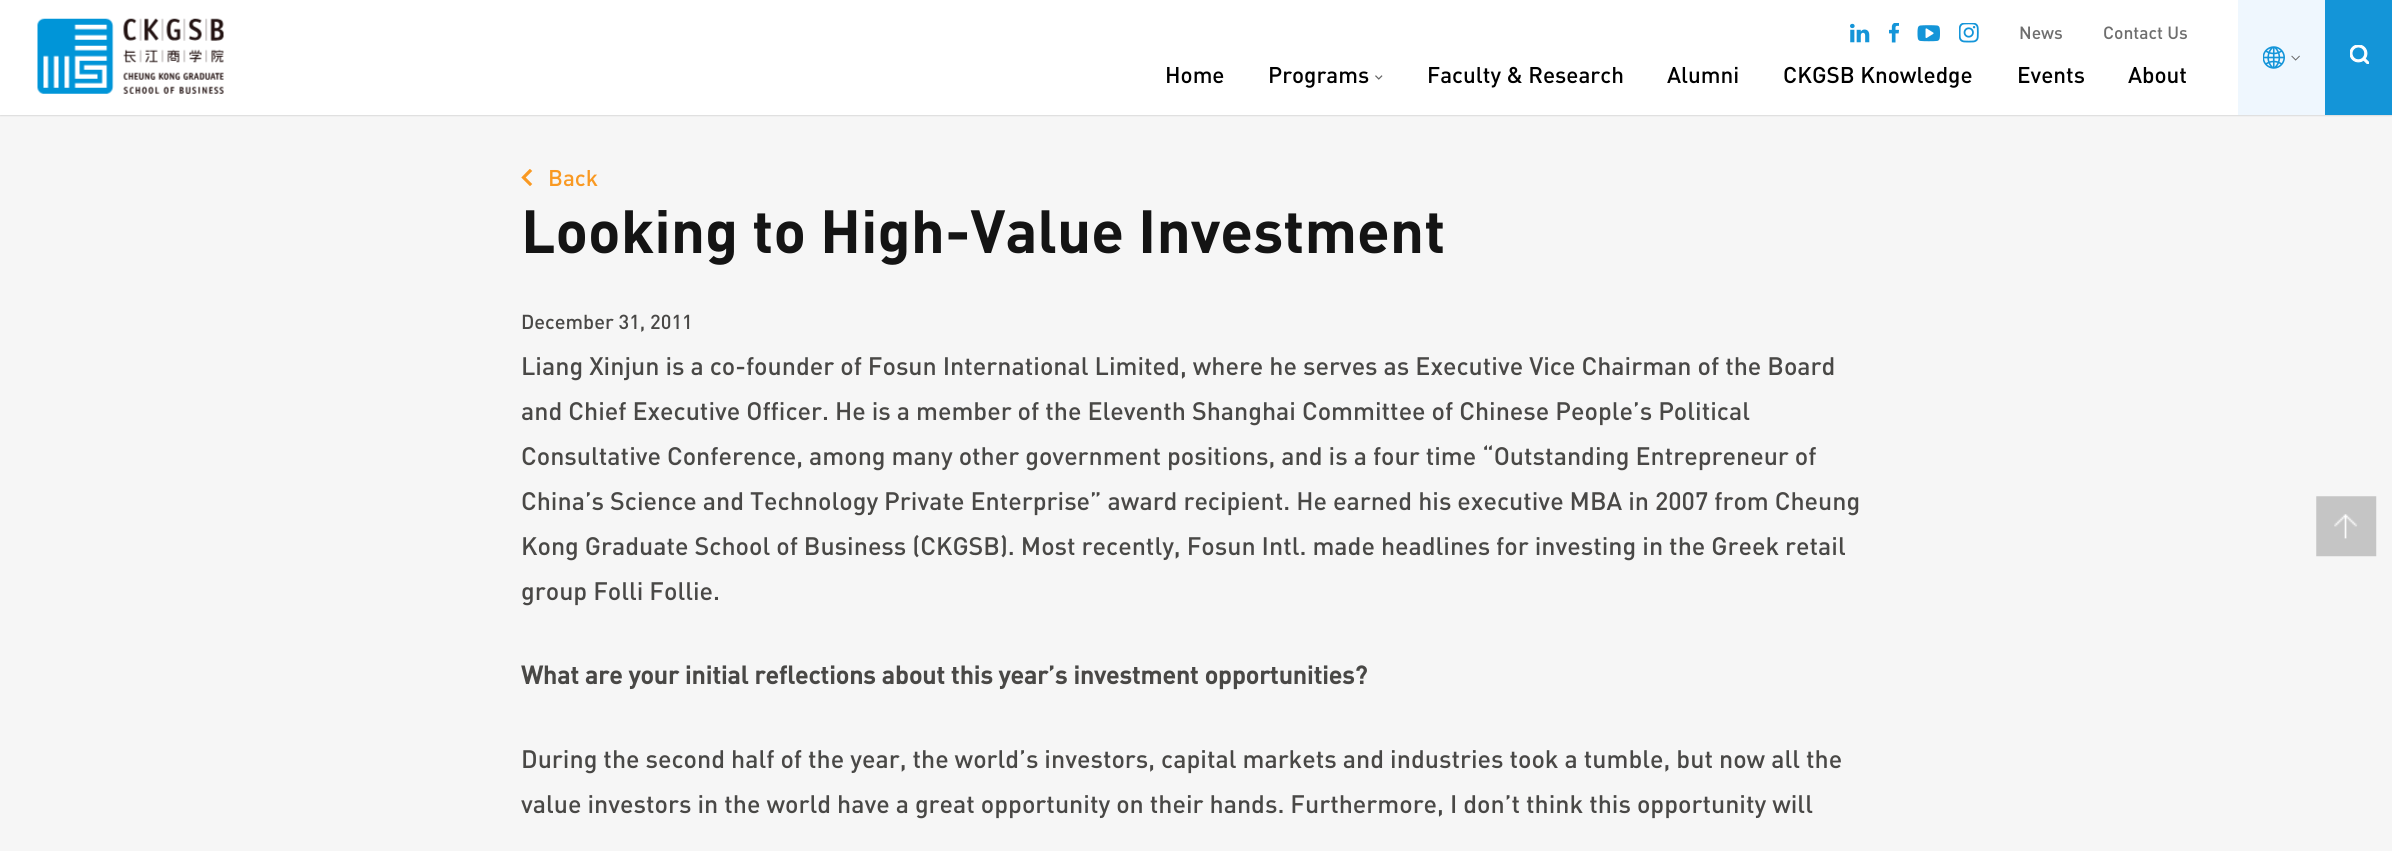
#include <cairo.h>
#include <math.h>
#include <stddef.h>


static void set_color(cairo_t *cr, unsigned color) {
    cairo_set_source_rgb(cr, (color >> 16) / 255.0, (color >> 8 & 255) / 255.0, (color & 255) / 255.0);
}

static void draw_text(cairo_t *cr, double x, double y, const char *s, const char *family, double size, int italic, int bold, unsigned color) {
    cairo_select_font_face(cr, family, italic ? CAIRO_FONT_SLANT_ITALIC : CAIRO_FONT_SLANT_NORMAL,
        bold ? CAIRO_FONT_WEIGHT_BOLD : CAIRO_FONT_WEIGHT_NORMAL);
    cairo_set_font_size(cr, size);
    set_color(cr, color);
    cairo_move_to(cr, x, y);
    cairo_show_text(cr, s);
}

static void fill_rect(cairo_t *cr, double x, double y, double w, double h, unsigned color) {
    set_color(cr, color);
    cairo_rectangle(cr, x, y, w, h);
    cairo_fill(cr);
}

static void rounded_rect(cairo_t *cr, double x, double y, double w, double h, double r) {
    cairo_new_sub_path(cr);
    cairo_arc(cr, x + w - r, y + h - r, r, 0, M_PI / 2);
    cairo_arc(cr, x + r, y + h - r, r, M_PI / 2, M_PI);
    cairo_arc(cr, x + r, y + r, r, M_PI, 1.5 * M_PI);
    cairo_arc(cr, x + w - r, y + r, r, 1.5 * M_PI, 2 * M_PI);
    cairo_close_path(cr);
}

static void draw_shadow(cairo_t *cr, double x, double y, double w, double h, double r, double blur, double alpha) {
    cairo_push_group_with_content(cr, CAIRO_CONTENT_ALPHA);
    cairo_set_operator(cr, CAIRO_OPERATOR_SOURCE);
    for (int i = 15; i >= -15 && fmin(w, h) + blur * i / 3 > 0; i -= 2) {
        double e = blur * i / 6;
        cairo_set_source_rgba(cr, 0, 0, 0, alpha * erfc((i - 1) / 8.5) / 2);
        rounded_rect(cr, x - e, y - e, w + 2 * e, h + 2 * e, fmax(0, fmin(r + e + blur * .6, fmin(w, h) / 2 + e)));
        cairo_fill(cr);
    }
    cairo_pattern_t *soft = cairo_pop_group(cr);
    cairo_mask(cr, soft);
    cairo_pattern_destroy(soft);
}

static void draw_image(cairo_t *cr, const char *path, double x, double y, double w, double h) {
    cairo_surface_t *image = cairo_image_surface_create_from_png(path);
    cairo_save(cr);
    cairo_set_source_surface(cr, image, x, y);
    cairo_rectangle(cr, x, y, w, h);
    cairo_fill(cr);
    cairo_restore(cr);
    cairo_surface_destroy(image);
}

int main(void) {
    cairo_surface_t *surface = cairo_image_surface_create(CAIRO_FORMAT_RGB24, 2392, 851);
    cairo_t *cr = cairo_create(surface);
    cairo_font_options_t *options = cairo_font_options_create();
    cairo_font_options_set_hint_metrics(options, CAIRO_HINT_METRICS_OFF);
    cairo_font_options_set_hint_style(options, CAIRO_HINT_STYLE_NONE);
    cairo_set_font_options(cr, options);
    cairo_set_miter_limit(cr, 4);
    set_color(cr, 0xFFFFFF);
    cairo_paint(cr);
    fill_rect(cr, 0, 115, 2392, 736, 0xF6F6F6);
    cairo_save(cr);
    cairo_rectangle(cr, 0, 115, 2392, 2);
    cairo_clip(cr);
    set_color(cr, 0xDDDDDD);
    draw_shadow(cr, 0, 1, 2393, 115, 0, 0.5, 1);
    cairo_restore(cr);
    draw_image(cr, "assets/img1.png", 37, 18, 187, 76);
    draw_image(cr, "assets/img2.png", 1850, 23, 20, 20);
    draw_image(cr, "assets/img3.png", 1889, 23, 10, 20);
    draw_image(cr, "assets/img4.png", 1917, 25, 23, 17);
    draw_image(cr, "assets/img5.png", 1959, 23, 20, 20);
    draw_text(cr, 2019, 39, "News", "DIN Medium", 17.5, 0, 0, 0x6E6E6E);
    draw_text(cr, 2103, 39, "Contact Us", "DIN Medium", 17.5, 0, 0, 0x6E6E6E);
    draw_text(cr, 1165, 83, "Home", "DIN Medium", 22.5, 0, 0, 0x000000);
    draw_text(cr, 1268, 83, "Programs", "DIN Medium", 22.5, 0, 0, 0x000000);
    draw_image(cr, "assets/img6.png", 1375, 75, 8, 5);
    draw_text(cr, 1427, 83, "Faculty & Research", "DIN Medium", 22.5, 0, 0, 0x000000);
    draw_text(cr, 1667, 83, "Alumni", "DIN Medium", 22.5, 0, 0, 0x000000);
    draw_text(cr, 1783, 83, "CKGSB Knowledge", "DIN Medium", 22.5, 0, 0, 0x000000);
    draw_text(cr, 2017, 83, "Events", "DIN Medium", 22.5, 0, 0, 0x000000);
    draw_text(cr, 2128, 83, "About", "DIN Medium", 22.5, 0, 0, 0x000000);
    fill_rect(cr, 2238, 0, 87, 115, 0xEFF7FE);
    draw_image(cr, "assets/img7.png", 2263, 46, 22, 23);
    draw_image(cr, "assets/img8.png", 2291, 55, 9, 6);
    fill_rect(cr, 2325, 0, 67, 115, 0x1495D8);
    draw_image(cr, "assets/img9.png", 2350, 45, 19, 19);
    draw_image(cr, "assets/img10.png", 521, 169, 12, 17);
    draw_text(cr, 548, 186, "Back", "DIN Medium", 22.5, 0, 0, 0xF99922);
    draw_text(cr, 521, 253, "Looking to High-Value Investment", "DIN", 60, 0, 1, 0x141414);
    draw_text(cr, 521, 329, "December 31, 2011", "DIN Medium", 20, 0, 0, 0x494846);
    draw_text(cr, 521, 375, "Liang Xinjun is a co-founder of Fosun International Limited, where he serves as Executive Vice Chairman of the Board", "DIN Medium", 25, 0, 0, 0x494846);
    draw_text(cr, 521, 420, "and Chief Executive Officer. He is a member of the Eleventh Shanghai Committee of Chinese People’s Political", "DIN Medium", 25, 0, 0, 0x494846);
    draw_text(cr, 521, 465, "Consultative Conference, among many other government positions, and is a four time “Outstanding Entrepreneur of", "DIN Medium", 25, 0, 0, 0x494846);
    draw_text(cr, 521, 510, "China’s Science and Technology Private Enterprise” award recipient. He earned his executive MBA in 2007 from Cheung", "DIN Medium", 25, 0, 0, 0x494846);
    draw_text(cr, 521, 555, "Kong Graduate School of Business (CKGSB). Most recently, Fosun Intl. made headlines for investing in the Greek retail", "DIN Medium", 25, 0, 0, 0x494846);
    draw_text(cr, 521, 600, "group Folli Follie.", "DIN Medium", 25, 0, 0, 0x494846);
    draw_text(cr, 521, 684, "What are your initial reflections about this year’s investment opportunities?", "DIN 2", 25, 0, 1, 0x494846);
    draw_text(cr, 521, 768, "During the second half of the year, the world’s investors, capital markets and industries took a tumble, but now all the", "DIN Medium", 25, 0, 0, 0x494846);
    draw_text(cr, 521, 813, "value investors in the world have a great opportunity on their hands. Furthermore, I don’t think this opportunity will", "DIN Medium", 25, 0, 0, 0x494846);
    draw_image(cr, "assets/img11.png", 2316, 496, 61, 61);
    cairo_surface_write_to_png(surface, "output.png");
    cairo_font_options_destroy(options);
    cairo_destroy(cr);
    cairo_surface_destroy(surface);
    return 0;
}
